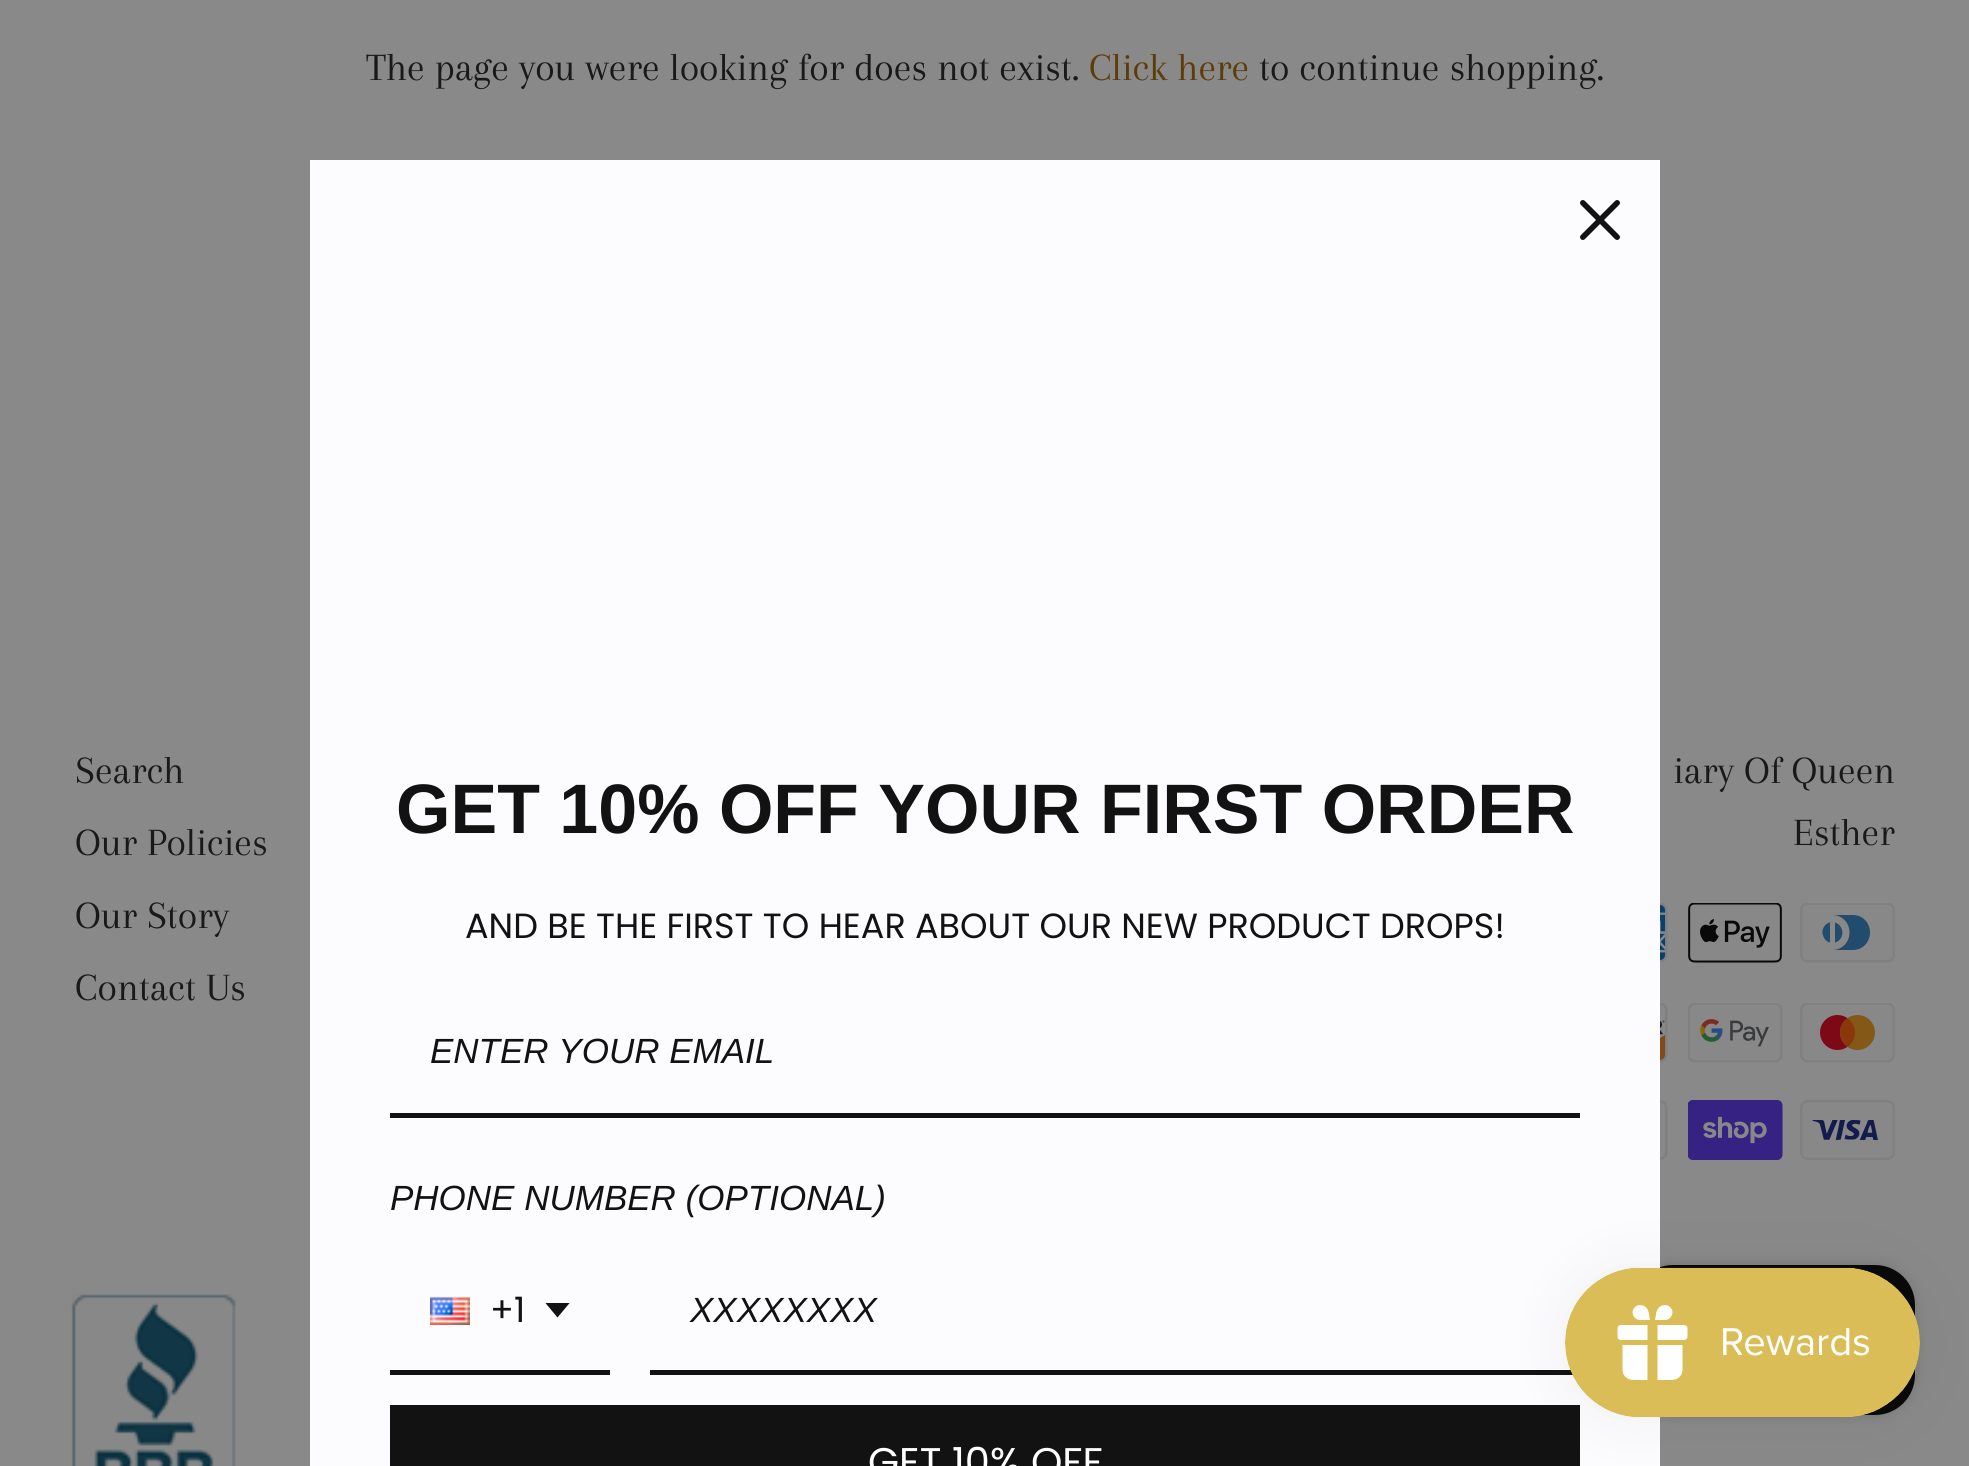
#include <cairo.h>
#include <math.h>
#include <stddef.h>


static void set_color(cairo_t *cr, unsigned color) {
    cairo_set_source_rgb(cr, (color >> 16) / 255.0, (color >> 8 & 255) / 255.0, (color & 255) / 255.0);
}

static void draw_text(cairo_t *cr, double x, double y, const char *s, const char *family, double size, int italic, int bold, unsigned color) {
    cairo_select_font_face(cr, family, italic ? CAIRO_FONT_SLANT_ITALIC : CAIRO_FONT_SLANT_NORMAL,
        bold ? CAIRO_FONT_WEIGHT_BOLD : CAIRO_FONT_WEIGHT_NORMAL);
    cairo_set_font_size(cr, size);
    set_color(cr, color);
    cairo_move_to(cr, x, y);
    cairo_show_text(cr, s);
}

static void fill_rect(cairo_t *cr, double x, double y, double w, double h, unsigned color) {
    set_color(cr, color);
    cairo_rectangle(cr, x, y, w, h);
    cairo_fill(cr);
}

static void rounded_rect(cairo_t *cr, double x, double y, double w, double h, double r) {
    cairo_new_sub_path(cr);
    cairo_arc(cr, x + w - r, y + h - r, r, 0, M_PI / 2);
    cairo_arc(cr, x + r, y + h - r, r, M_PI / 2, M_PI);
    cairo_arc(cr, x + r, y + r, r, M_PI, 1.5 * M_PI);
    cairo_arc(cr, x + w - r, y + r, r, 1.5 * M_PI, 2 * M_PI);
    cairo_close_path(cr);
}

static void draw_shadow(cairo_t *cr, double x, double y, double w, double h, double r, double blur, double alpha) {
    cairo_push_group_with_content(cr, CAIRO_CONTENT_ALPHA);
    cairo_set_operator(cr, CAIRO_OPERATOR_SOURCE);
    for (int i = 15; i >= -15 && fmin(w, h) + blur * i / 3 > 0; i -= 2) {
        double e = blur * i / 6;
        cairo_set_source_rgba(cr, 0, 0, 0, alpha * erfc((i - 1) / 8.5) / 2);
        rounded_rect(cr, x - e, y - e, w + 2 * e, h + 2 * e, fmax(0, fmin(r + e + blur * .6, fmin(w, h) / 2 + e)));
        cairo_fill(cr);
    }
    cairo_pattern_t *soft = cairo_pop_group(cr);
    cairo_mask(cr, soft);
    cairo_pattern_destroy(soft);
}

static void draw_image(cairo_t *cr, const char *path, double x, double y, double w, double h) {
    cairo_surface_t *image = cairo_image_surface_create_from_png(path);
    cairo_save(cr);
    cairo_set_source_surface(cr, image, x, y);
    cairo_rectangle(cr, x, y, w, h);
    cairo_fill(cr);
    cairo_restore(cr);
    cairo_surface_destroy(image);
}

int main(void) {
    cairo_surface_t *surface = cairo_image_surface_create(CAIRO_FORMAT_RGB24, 1969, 1466);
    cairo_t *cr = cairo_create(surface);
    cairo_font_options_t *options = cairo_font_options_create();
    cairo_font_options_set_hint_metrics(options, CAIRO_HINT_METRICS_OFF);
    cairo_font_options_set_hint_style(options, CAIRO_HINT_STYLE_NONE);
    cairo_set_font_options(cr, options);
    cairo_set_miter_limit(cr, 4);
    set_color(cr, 0x898989);
    cairo_paint(cr);
    draw_text(cr, 366, 80, "The page you were looking for does not exist.", "Arapey", 40, 0, 0, 0x19191A);
    draw_text(cr, 1089, 80, "Click here", "Arapey", 40, 0, 0, 0x5C3C09);
    draw_text(cr, 1259, 80, "to continue shopping.", "Arapey", 40, 0, 0, 0x19191A);
    draw_text(cr, 75, 783, "Search", "Arapey", 40, 0, 0, 0x19191A);
    draw_text(cr, 75, 855, "Our Policies", "Arapey", 40, 0, 0, 0x19191A);
    draw_text(cr, 75, 928, "Our Story", "Arapey", 40, 0, 0, 0x19191A);
    draw_text(cr, 75, 1000, "Contact Us", "Arapey", 40, 0, 0, 0x19191A);
    draw_text(cr, 1673, 783, "iary Of Queen", "Arapey", 40, 0, 0, 0x19191A);
    draw_text(cr, 1793, 845, "Esther", "Arapey", 40, 0, 0, 0x19191A);
    draw_image(cr, "assets/img1.png", 1660, 903, 8, 60);
    draw_image(cr, "assets/img2.png", 1688, 903, 94, 60);
    draw_image(cr, "assets/img3.png", 1800, 903, 95, 60);
    draw_image(cr, "assets/img4.png", 1660, 1003, 8, 60);
    draw_image(cr, "assets/img5.png", 1688, 1003, 95, 60);
    draw_image(cr, "assets/img6.png", 1800, 1003, 95, 60);
    draw_image(cr, "assets/img7.png", 1660, 1100, 8, 60);
    draw_image(cr, "assets/img8.png", 1688, 1100, 95, 60);
    draw_image(cr, "assets/img9.png", 1800, 1100, 95, 60);
    draw_image(cr, "assets/img10.png", 71, 1294, 165, 172);
    set_color(cr, 0x090909);
    draw_shadow(cr, 1633, 1265, 282, 150, 40, 6, 0.15);
    set_color(cr, 0x090909);
    rounded_rect(cr, 1633, 1265, 282, 150, 40);
    cairo_fill(cr);
    fill_rect(cr, 310, 160, 1350, 1306, 0xFCFCFF);
    draw_image(cr, "assets/img11.png", 1580, 200, 40, 40);
    draw_text(cr, 396, 833, "GET 10% OFF YOUR FIRST ORDER", "Liberation Sans", 70, 0, 1, 0x121212);
    draw_text(cr, 465, 938, "AND BE THE FIRST TO HEAR ABOUT OUR NEW PRODUCT DROPS!", "Poppins", 35, 0, 0, 0x121212);
    fill_rect(cr, 390, 1113, 1190, 5, 0x121212);
    draw_text(cr, 430, 1063, "ENTER YOUR EMAIL", "Liberation Sans", 35, 1, 0, 0x121212);
    draw_text(cr, 390, 1210, "PHONE NUMBER (OPTIONAL)", "Liberation Sans", 35, 1, 0, 0x121212);
    fill_rect(cr, 390, 1370, 220, 5, 0x121212);
    draw_image(cr, "assets/img12.png", 430, 1296, 40, 29);
    draw_text(cr, 490, 1322, "+1", "Poppins", 35, 0, 0, 0x121212);
    cairo_save(cr);
    cairo_rectangle(cr, 545, 1303, 25, 15);
    cairo_clip(cr);
    cairo_set_fill_rule(cr, CAIRO_FILL_RULE_EVEN_ODD);
    cairo_new_path(cr);
    cairo_move_to(cr, 545, 1302.5);
    cairo_line_to(cr, 570, 1302.5);
    cairo_line_to(cr, 557.5, 1317.5);
    cairo_close_path(cr);
    cairo_fill(cr);
    cairo_restore(cr);
    fill_rect(cr, 650, 1370, 930, 5, 0x121212);
    draw_text(cr, 690, 1322, "XXXXXXXX", "Liberation Sans", 35, 1, 0, 0x121212);
    fill_rect(cr, 390, 1405, 1190, 61, 0x121212);
    draw_text(cr, 868, 1476, "GET 10% OFF", "Poppins", 40, 0, 0, 0xFFFFFF);
    set_color(cr, 0x000000);
    draw_shadow(cr, 1565, 1268, 355, 150, 75, 31, 0.05);
    draw_image(cr, "assets/img13.png", 1565, 1267, 355, 151);
    cairo_surface_write_to_png(surface, "output.png");
    cairo_font_options_destroy(options);
    cairo_destroy(cr);
    cairo_surface_destroy(surface);
    return 0;
}
